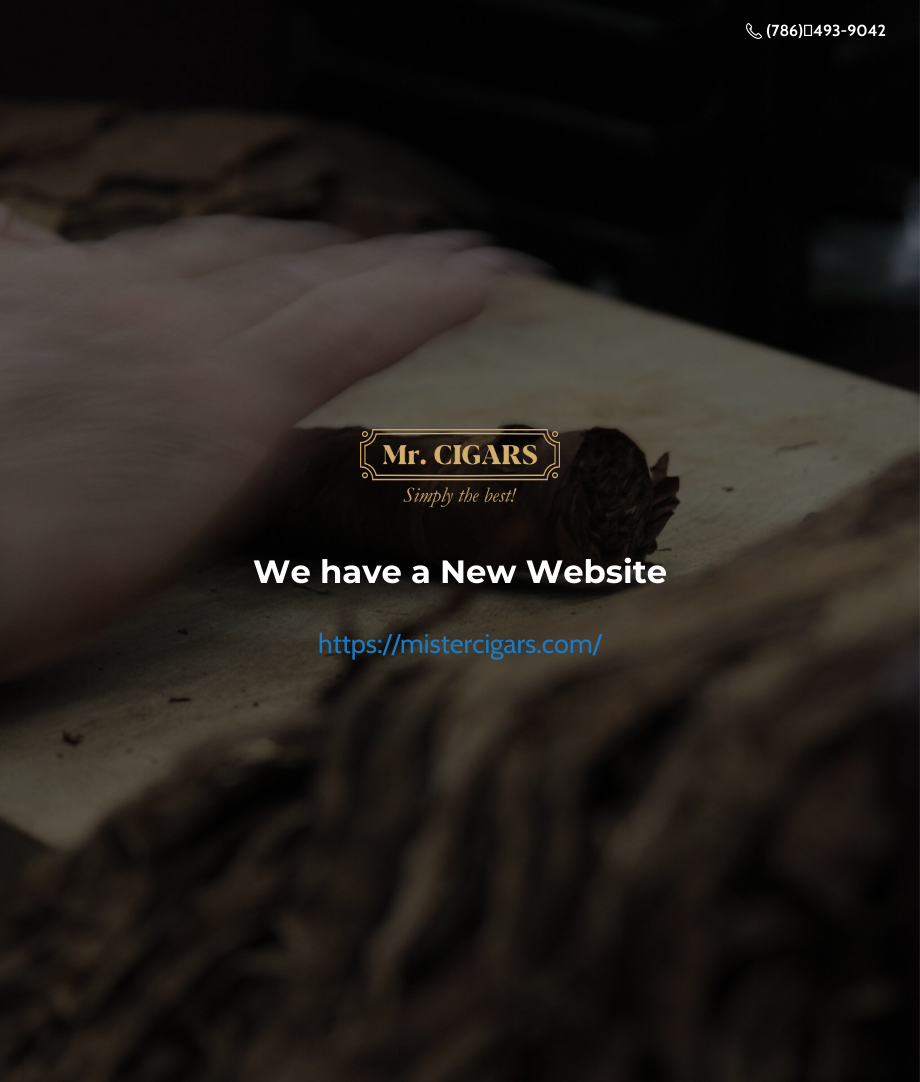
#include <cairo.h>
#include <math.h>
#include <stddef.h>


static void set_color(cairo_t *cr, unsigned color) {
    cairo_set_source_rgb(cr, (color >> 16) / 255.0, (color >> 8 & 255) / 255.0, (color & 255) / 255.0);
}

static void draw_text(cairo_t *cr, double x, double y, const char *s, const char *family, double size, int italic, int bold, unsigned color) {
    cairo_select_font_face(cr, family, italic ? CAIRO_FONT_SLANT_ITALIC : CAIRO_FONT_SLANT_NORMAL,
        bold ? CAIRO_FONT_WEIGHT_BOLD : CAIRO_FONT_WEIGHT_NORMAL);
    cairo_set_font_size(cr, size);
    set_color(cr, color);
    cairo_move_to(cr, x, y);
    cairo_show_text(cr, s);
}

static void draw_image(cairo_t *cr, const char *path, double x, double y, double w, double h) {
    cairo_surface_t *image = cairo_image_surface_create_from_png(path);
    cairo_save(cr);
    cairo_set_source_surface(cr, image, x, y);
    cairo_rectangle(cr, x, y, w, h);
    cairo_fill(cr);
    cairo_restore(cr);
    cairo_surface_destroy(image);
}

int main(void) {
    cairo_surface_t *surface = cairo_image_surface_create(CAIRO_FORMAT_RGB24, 920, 1082);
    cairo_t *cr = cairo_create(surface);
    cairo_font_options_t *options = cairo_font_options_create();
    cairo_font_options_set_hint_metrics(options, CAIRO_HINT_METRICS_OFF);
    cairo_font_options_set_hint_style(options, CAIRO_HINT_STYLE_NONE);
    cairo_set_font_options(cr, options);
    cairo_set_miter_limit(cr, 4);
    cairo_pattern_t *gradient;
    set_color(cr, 0xFFFFFF);
    cairo_paint(cr);
    draw_image(cr, "assets/img1.png", 0, 0, 920, 1082);
    gradient = cairo_pattern_create_linear(460, 162, 460, 0);
    cairo_pattern_add_color_stop_rgba(gradient, 0, 0, 0, 0, 0);
    cairo_pattern_add_color_stop_rgba(gradient, 1, 0, 0, 0, 0.15);
    cairo_set_source(cr, gradient);
    cairo_pattern_destroy(gradient);
    cairo_rectangle(cr, 919, 0, 1, 25);
    cairo_fill(cr);
    draw_image(cr, "assets/img2.png", 746, 23, 16, 16);
    draw_text(cr, 766, 36, "(786) 493-9042", "Cabin", 16, 0, 1, 0xFFFFFF);
    draw_image(cr, "assets/img3.png", 360, 429, 200, 79);
    draw_text(cr, 253, 583, "We have a New Website", "Montserrat", 32.25, 0, 1, 0xFFFFFF);
    draw_text(cr, 318, 653, "https://mistercigars.com/", "Cabin", 27, 0, 0, 0x1A7AC4);
    cairo_surface_write_to_png(surface, "output.png");
    cairo_font_options_destroy(options);
    cairo_destroy(cr);
    cairo_surface_destroy(surface);
    return 0;
}
